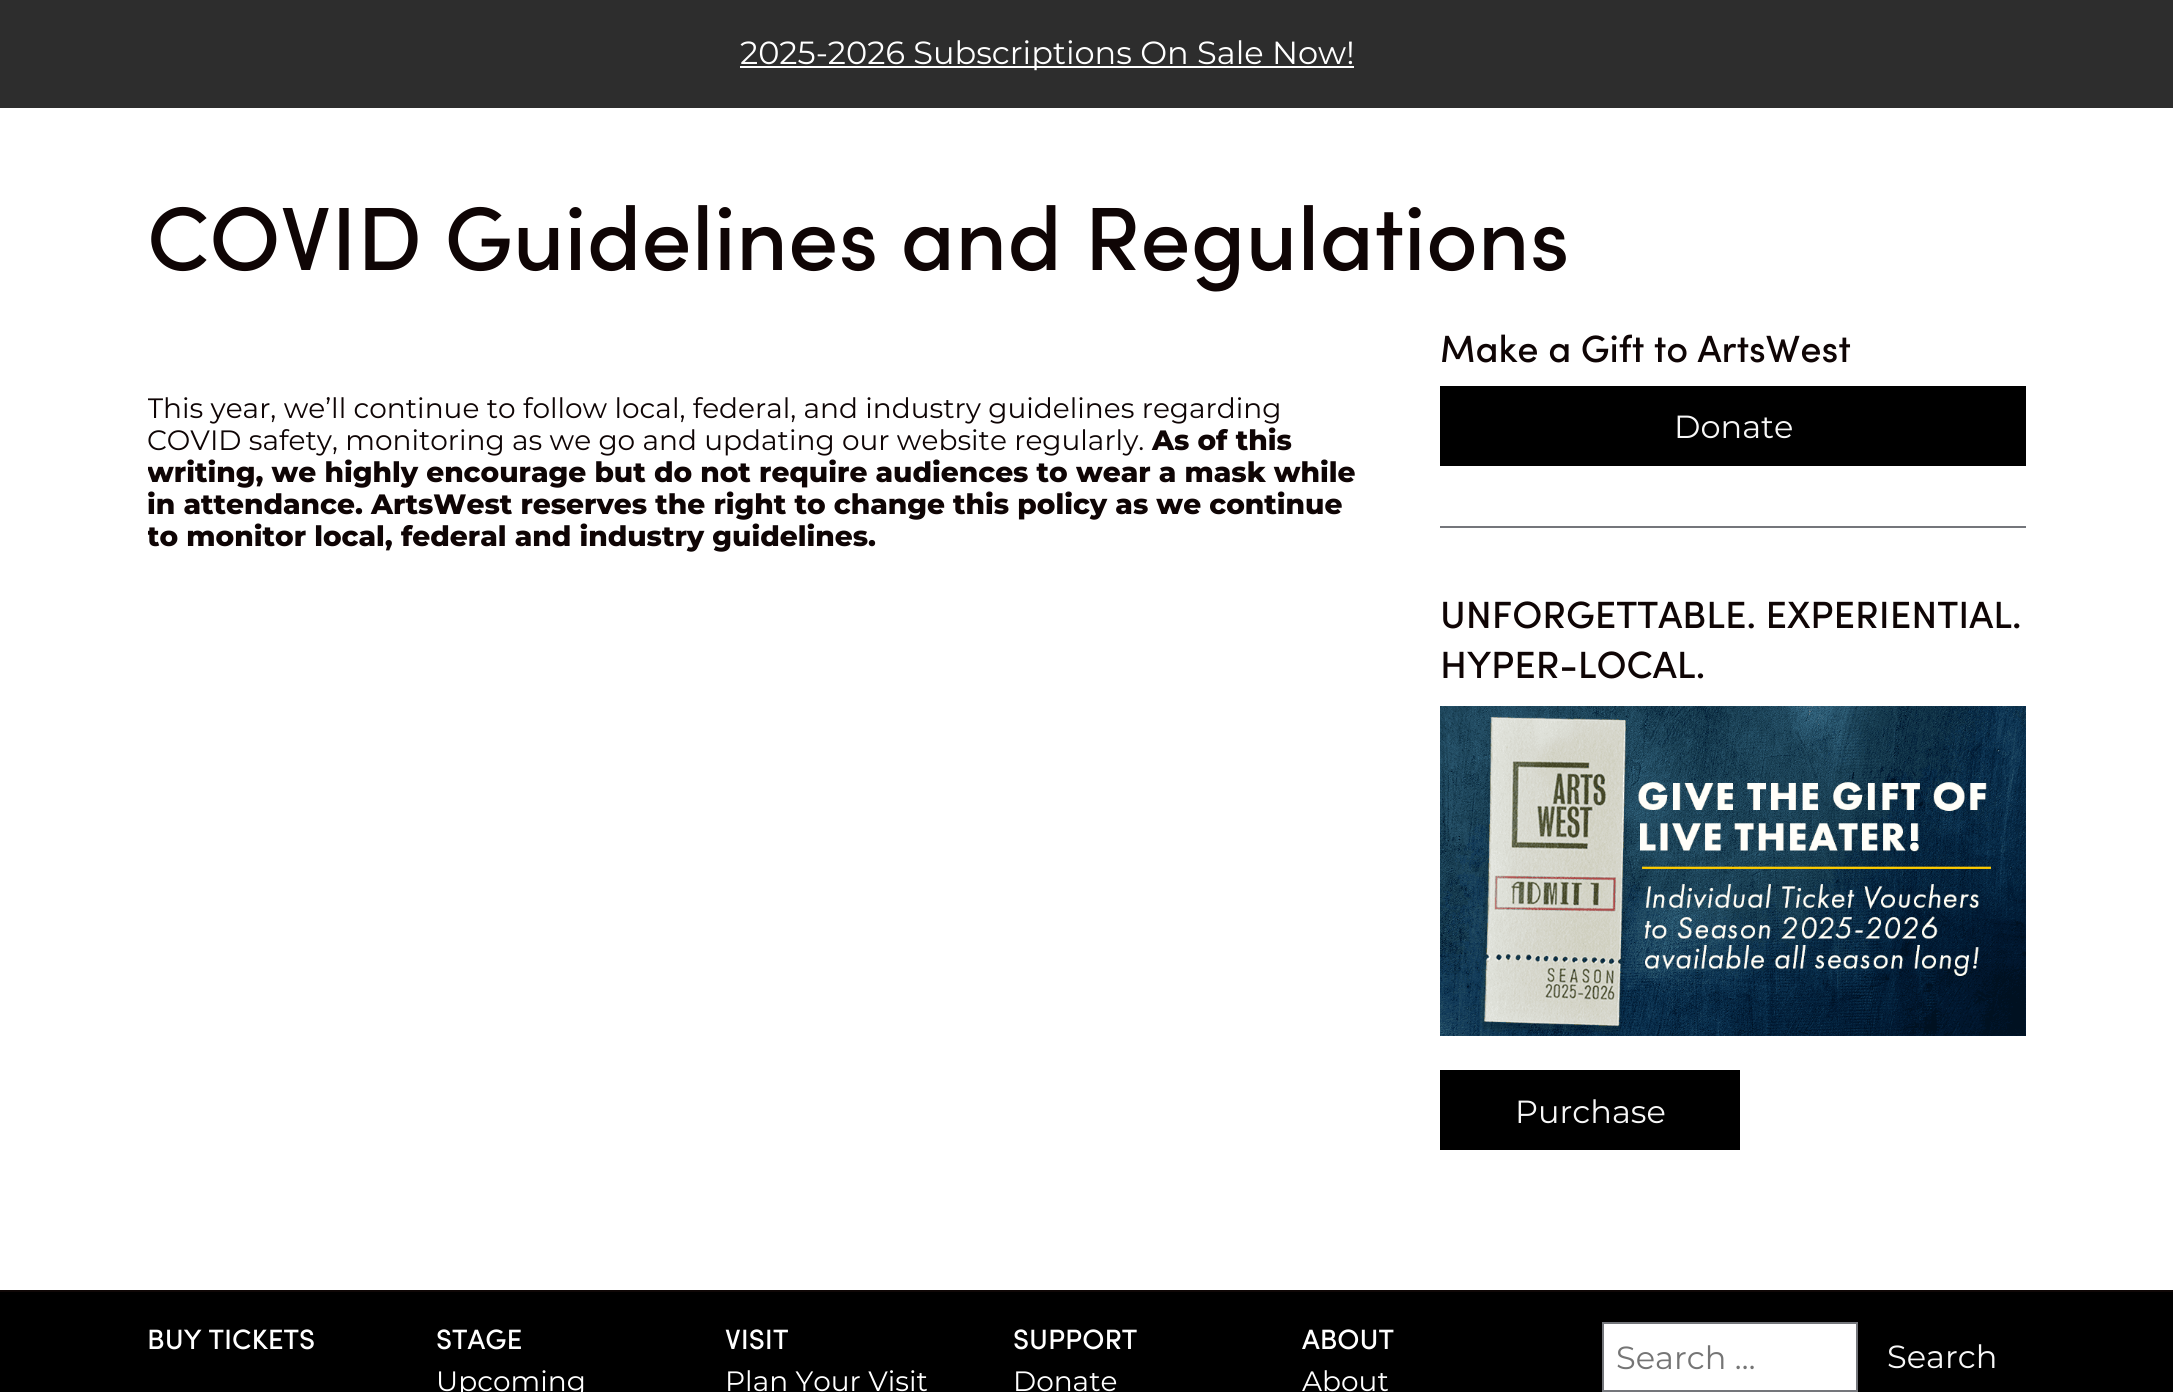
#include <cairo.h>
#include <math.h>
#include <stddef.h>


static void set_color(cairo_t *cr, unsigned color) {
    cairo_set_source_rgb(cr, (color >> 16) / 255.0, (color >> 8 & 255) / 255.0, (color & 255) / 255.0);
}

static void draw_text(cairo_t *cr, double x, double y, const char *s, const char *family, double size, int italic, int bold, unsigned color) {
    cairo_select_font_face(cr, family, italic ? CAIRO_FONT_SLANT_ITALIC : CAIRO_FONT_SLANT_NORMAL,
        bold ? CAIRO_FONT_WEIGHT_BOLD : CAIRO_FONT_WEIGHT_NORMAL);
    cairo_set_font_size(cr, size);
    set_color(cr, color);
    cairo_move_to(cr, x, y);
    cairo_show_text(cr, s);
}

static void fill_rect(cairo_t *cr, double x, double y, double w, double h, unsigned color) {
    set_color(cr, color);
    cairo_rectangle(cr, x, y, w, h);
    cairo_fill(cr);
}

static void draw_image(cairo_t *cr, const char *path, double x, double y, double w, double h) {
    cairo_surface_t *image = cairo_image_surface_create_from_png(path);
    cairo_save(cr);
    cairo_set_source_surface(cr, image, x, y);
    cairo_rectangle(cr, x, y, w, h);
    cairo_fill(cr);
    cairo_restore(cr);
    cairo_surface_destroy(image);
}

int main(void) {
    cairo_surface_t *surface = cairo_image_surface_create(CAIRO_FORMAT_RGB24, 2173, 1392);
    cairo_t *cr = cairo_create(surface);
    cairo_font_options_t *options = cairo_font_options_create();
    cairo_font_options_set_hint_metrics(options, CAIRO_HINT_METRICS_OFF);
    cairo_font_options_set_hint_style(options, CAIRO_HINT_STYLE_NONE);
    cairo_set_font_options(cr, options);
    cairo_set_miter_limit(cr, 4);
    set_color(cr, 0xFFFFFF);
    cairo_paint(cr);
    fill_rect(cr, 0, 0, 2173, 108, 0x2D2D2D);
    fill_rect(cr, 740, 66, 614, 2, 0xFFFFFF);
    draw_text(cr, 740, 64, "2025-2026 Subscriptions On Sale Now!", "Montserrat", 32, 0, 0, 0xFFFFFF);
    draw_text(cr, 147, 270, "COVID Guidelines and Regulations", "Sofia Medium", 90, 0, 0, 0x0F0505);
    cairo_save(cr);
    cairo_rectangle(cr, 148, 364, 1232, 216);
    cairo_clip(cr);
    draw_text(cr, 147, 418, "This year, we’ll continue to follow local, federal, and industry guidelines regarding", "Montserrat", 28, 0, 0, 0x0F0505);
    cairo_restore(cr);
    draw_text(cr, 147, 450, "COVID safety, monitoring as we go and updating our website regularly.", "Montserrat", 28, 0, 0, 0x0F0505);
    draw_text(cr, 1152, 450, "As of this", "Montserrat ExtraBold", 28, 0, 0, 0x0F0505);
    cairo_save(cr);
    cairo_rectangle(cr, 148, 364, 1232, 216);
    cairo_clip(cr);
    draw_text(cr, 147, 482, "writing, we highly encourage but do not require audiences to wear a mask while", "Montserrat ExtraBold", 28, 0, 0, 0x0F0505);
    cairo_restore(cr);
    draw_text(cr, 147, 514, "in attendance. ArtsWest reserves the right to change this policy as we continue", "Montserrat ExtraBold", 28, 0, 0, 0x0F0505);
    cairo_save(cr);
    cairo_rectangle(cr, 148, 364, 1232, 216);
    cairo_clip(cr);
    draw_text(cr, 147, 546, "to monitor local, federal and industry guidelines.", "Montserrat ExtraBold", 28, 0, 0, 0x0F0505);
    cairo_restore(cr);
    fill_rect(cr, 1440, 526, 586, 2, 0x74767B);
    draw_text(cr, 1440, 362, "Make a Gift to ArtsWest", "Sofia Medium", 38, 0, 0, 0x0F0505);
    fill_rect(cr, 1440, 386, 586, 80, 0x000000);
    draw_text(cr, 1674, 438, "Donate", "Montserrat", 32, 0, 0, 0xF7F7F7);
    draw_text(cr, 1440, 628, "UNFORGETTABLE. EXPERIENTIAL.", "Sofia Medium", 38, 0, 0, 0x0F0505);
    draw_text(cr, 1440, 678, "HYPER-LOCAL.", "Sofia Medium", 38, 0, 0, 0x0F0505);
    draw_image(cr, "assets/img1.png", 1440, 706, 586, 330);
    fill_rect(cr, 1440, 1070, 300, 80, 0x000000);
    draw_text(cr, 1515, 1123, "Purchase", "Montserrat", 32, 0, 0, 0xF7F7F7);
    fill_rect(cr, 0, 1292, 2173, 100, 0x000000);
    fill_rect(cr, 0, 1290, 2173, 2, 0x0F0706);
    draw_text(cr, 147, 1349, "BUY TICKETS", "Sofia Medium", 28, 0, 0, 0xFFFFFF);
    draw_text(cr, 436, 1349, "STAGE", "Sofia Medium", 28, 0, 0, 0xFFFFFF);
    draw_text(cr, 436, 1391, "Upcoming", "Montserrat", 28, 0, 0, 0xFFFFFF);
    draw_text(cr, 725, 1349, "VISIT", "Sofia Medium", 28, 0, 0, 0xFFFFFF);
    draw_text(cr, 725, 1391, "Plan Your Visit", "Montserrat", 28, 0, 0, 0xFFFFFF);
    draw_text(cr, 1013, 1349, "SUPPORT", "Sofia Medium", 28, 0, 0, 0xFFFFFF);
    draw_text(cr, 1013, 1391, "Donate", "Montserrat", 28, 0, 0, 0xFFFFFF);
    draw_text(cr, 1302, 1349, "ABOUT", "Sofia Medium", 28, 0, 0, 0xFFFFFF);
    draw_text(cr, 1302, 1391, "About", "Montserrat", 28, 0, 0, 0xFFFFFF);
    cairo_rectangle(cr, 1603, 1323, 254, 68);
    cairo_fill_preserve(cr);
    set_color(cr, 0x74767B);
    cairo_stroke(cr);
    draw_text(cr, 1616, 1369, "Search …", "Montserrat", 32, 0, 0, 0x757575);
    draw_text(cr, 1887, 1368, "Search", "Montserrat", 32, 0, 0, 0xF7F7F7);
    cairo_surface_write_to_png(surface, "output.png");
    cairo_font_options_destroy(options);
    cairo_destroy(cr);
    cairo_surface_destroy(surface);
    return 0;
}
